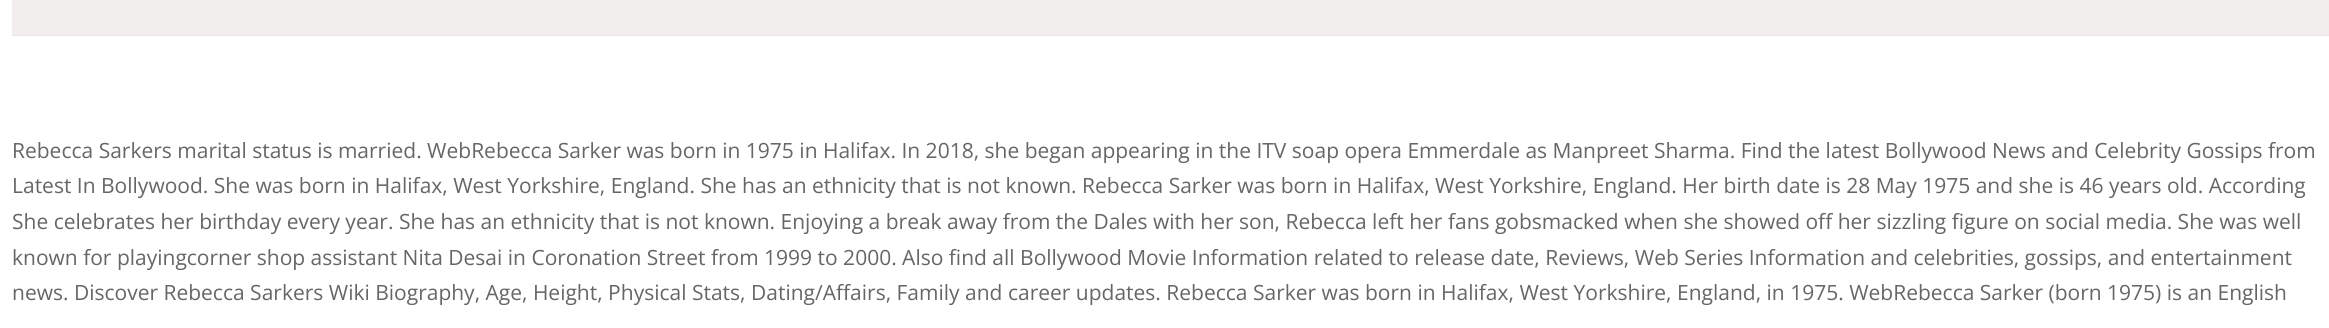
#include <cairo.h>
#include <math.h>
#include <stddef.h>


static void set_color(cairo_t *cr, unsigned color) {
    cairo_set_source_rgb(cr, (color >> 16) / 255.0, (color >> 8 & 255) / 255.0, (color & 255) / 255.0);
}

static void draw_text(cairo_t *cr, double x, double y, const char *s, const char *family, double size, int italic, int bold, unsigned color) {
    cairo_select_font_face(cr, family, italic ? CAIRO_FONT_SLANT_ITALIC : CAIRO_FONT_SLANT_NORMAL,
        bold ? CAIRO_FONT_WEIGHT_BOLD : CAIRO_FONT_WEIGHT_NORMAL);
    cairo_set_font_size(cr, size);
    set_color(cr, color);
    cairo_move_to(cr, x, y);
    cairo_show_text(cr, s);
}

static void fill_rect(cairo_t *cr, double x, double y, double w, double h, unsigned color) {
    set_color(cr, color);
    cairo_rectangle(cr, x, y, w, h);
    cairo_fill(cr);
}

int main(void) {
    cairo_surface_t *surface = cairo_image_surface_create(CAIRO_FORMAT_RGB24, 2329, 328);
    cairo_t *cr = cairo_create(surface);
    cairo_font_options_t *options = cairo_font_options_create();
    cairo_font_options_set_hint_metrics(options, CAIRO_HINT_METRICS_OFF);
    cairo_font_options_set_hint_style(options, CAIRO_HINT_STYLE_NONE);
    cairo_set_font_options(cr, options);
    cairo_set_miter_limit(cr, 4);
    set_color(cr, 0xFFFFFF);
    cairo_paint(cr);
    set_color(cr, 0xE6E6E6);
    cairo_new_path(cr);
    cairo_move_to(cr, 12, 34);
    cairo_line_to(cr, 12, 36);
    cairo_line_to(cr, 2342, 36);
    cairo_line_to(cr, 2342, 2);
    cairo_line_to(cr, 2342, 34);
    cairo_close_path(cr);
    cairo_fill(cr);
    fill_rect(cr, 12, 0, 2317, 35, 0xF2EEED);
    draw_text(cr, 12, 158, "Rebecca Sarkers marital status is married. WebRebecca Sarker was born in 1975 in Halifax. In 2018, she began appearing in the ITV soap opera Emmerdale as Manpreet Sharma. Find the latest Bollywood News and Celebrity Gossips from", "Open Sans", 21, 0, 0, 0x666666);
    draw_text(cr, 12, 193, "Latest In Bollywood. She was born in Halifax, West Yorkshire, England. She has an ethnicity that is not known. Rebecca Sarker was born in Halifax, West Yorkshire, England. Her birth date is 28 May 1975 and she is 46 years old. According", "Open Sans", 21, 0, 0, 0x666666);
    draw_text(cr, 12, 229, "She celebrates her birthday every year. She has an ethnicity that is not known. Enjoying a break away from the Dales with her son, Rebecca left her fans gobsmacked when she showed off her sizzling figure on social media. She was well", "Open Sans", 21, 0, 0, 0x666666);
    draw_text(cr, 12, 265, "known for playingcorner shop assistant Nita Desai in Coronation Street from 1999 to 2000. Also find all Bollywood Movie Information related to release date, Reviews, Web Series Information and celebrities, gossips, and entertainment", "Open Sans", 21, 0, 0, 0x666666);
    draw_text(cr, 12, 300, "news. Discover Rebecca Sarkers Wiki Biography, Age, Height, Physical Stats, Dating/Affairs, Family and career updates. Rebecca Sarker was born in Halifax, West Yorkshire, England, in 1975. WebRebecca Sarker (born 1975) is an English", "Open Sans", 21, 0, 0, 0x666666);
    cairo_surface_write_to_png(surface, "output.png");
    cairo_font_options_destroy(options);
    cairo_destroy(cr);
    cairo_surface_destroy(surface);
    return 0;
}
